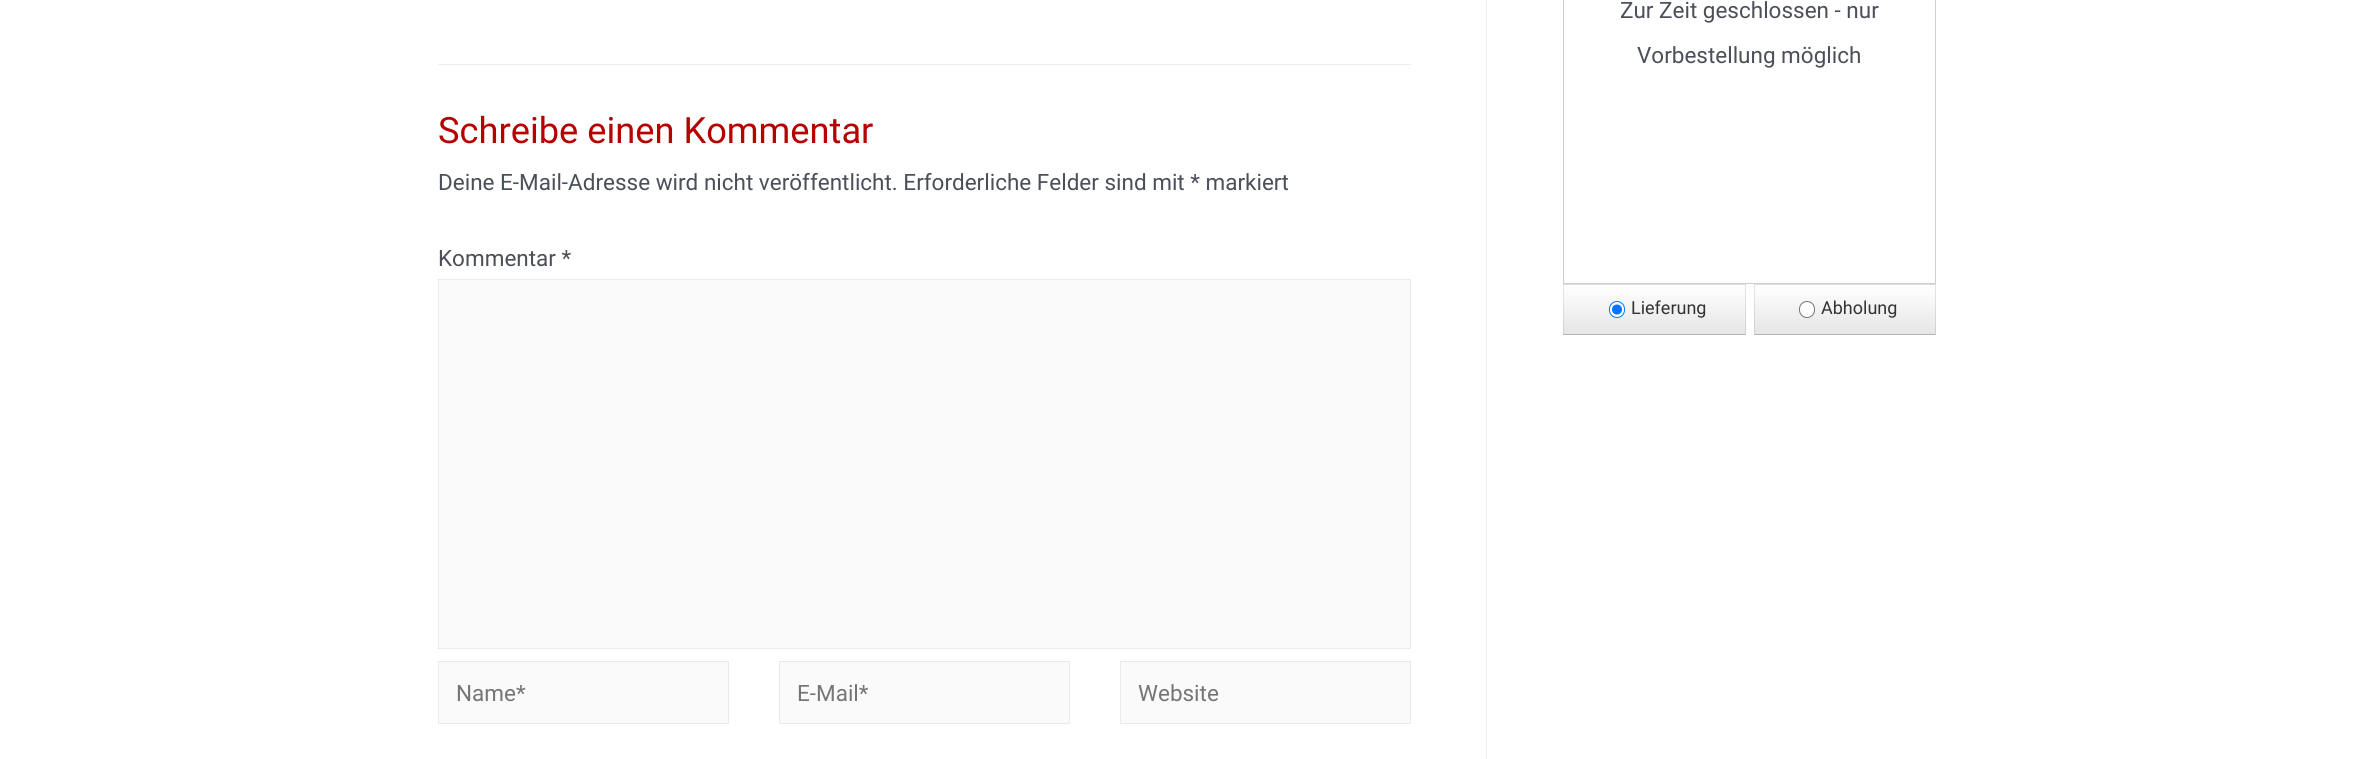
#include <cairo.h>
#include <math.h>
#include <stddef.h>


static void set_color(cairo_t *cr, unsigned color) {
    cairo_set_source_rgb(cr, (color >> 16) / 255.0, (color >> 8 & 255) / 255.0, (color & 255) / 255.0);
}

static void draw_text(cairo_t *cr, double x, double y, const char *s, const char *family, double size, int italic, int bold, unsigned color) {
    cairo_select_font_face(cr, family, italic ? CAIRO_FONT_SLANT_ITALIC : CAIRO_FONT_SLANT_NORMAL,
        bold ? CAIRO_FONT_WEIGHT_BOLD : CAIRO_FONT_WEIGHT_NORMAL);
    cairo_set_font_size(cr, size);
    set_color(cr, color);
    cairo_move_to(cr, x, y);
    cairo_show_text(cr, s);
}

static void fill_rect(cairo_t *cr, double x, double y, double w, double h, unsigned color) {
    set_color(cr, color);
    cairo_rectangle(cr, x, y, w, h);
    cairo_fill(cr);
}

static void rounded_rect(cairo_t *cr, double x, double y, double w, double h, double r) {
    cairo_new_sub_path(cr);
    cairo_arc(cr, x + w - r, y + h - r, r, 0, M_PI / 2);
    cairo_arc(cr, x + r, y + h - r, r, M_PI / 2, M_PI);
    cairo_arc(cr, x + r, y + r, r, M_PI, 1.5 * M_PI);
    cairo_arc(cr, x + w - r, y + r, r, 1.5 * M_PI, 2 * M_PI);
    cairo_close_path(cr);
}

int main(void) {
    cairo_surface_t *surface = cairo_image_surface_create(CAIRO_FORMAT_RGB24, 2374, 759);
    cairo_t *cr = cairo_create(surface);
    cairo_font_options_t *options = cairo_font_options_create();
    cairo_font_options_set_hint_metrics(options, CAIRO_HINT_METRICS_OFF);
    cairo_font_options_set_hint_style(options, CAIRO_HINT_STYLE_NONE);
    cairo_set_font_options(cr, options);
    cairo_set_miter_limit(cr, 4);
    cairo_pattern_t *gradient;
    set_color(cr, 0xFFFFFF);
    cairo_paint(cr);
    fill_rect(cr, 1486, 0, 1, 759, 0xEEEEEE);
    fill_rect(cr, 438, 64, 973, 1, 0xEEEEEE);
    draw_text(cr, 438, 143, "Schreibe einen Kommentar", "Roboto", 36.25, 0, 0, 0xB70000);
    draw_text(cr, 438, 190, "Deine E-Mail-Adresse wird nicht veröffentlicht. Erforderliche Felder sind mit * markiert", "Roboto", 22.5, 0, 0, 0x4B4F58);
    draw_text(cr, 438, 266, "Kommentar *", "Roboto", 22.5, 0, 0, 0x4B4F58);
    set_color(cr, 0xFAFAFA);
    cairo_rectangle(cr, 438.5, 279.5, 972, 369);
    cairo_fill_preserve(cr);
    set_color(cr, 0xEAEAEA);
    cairo_set_line_width(cr, 1);
    cairo_stroke(cr);
    set_color(cr, 0xFAFAFA);
    cairo_rectangle(cr, 438.5, 661.5, 290, 62);
    cairo_fill_preserve(cr);
    set_color(cr, 0xEAEAEA);
    cairo_stroke(cr);
    draw_text(cr, 456, 701, "Name*", "Roboto", 22.5, 0, 0, 0x757575);
    set_color(cr, 0xFAFAFA);
    cairo_rectangle(cr, 779.5, 661.5, 290, 62);
    cairo_fill_preserve(cr);
    set_color(cr, 0xEAEAEA);
    cairo_stroke(cr);
    draw_text(cr, 797, 701, "E-Mail*", "Roboto", 22.5, 0, 0, 0x757575);
    set_color(cr, 0xFAFAFA);
    cairo_rectangle(cr, 1120.5, 661.5, 290, 62);
    cairo_fill_preserve(cr);
    set_color(cr, 0xEAEAEA);
    cairo_stroke(cr);
    draw_text(cr, 1138, 701, "Website", "Roboto", 22.5, 0, 0, 0x757575);
    cairo_rectangle(cr, 1563.5, -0.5, 372, 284);
    set_color(cr, 0xCECECE);
    cairo_stroke(cr);
    draw_text(cr, 1620, 18, "Zur Zeit geschlossen - nur", "Roboto", 22.5, 0, 0, 0x4B4F58);
    draw_text(cr, 1637, 63, "Vorbestellung möglich", "Roboto", 22.5, 0, 0, 0x4B4F58);
    fill_rect(cr, 1563, 284, 183, 51, 0xF5F5F5);
    gradient = cairo_pattern_create_linear(1654, 285, 1654, 334);
    cairo_pattern_add_color_stop_rgba(gradient, 0, 1, 1, 1, 1);
    cairo_pattern_add_color_stop_rgba(gradient, 1, 0.902, 0.902, 0.902, 1);
    cairo_set_source(cr, gradient);
    cairo_pattern_destroy(gradient);
    cairo_rectangle(cr, 1563, 285, 183, 49);
    cairo_fill(cr);
    set_color(cr, 0xDDDDDD);
    cairo_new_path(cr);
    cairo_move_to(cr, 1562, 284);
    cairo_line_to(cr, 1746, 284);
    cairo_line_to(cr, 1745, 285);
    cairo_line_to(cr, 1564, 285);
    cairo_close_path(cr);
    cairo_fill(cr);
    cairo_set_source_rgba(cr, 0, 0, 0, 0.1);
    cairo_new_path(cr);
    cairo_move_to(cr, 1746, 284);
    cairo_line_to(cr, 1746, 335);
    cairo_line_to(cr, 1745, 334);
    cairo_line_to(cr, 1745, 285);
    cairo_close_path(cr);
    cairo_fill(cr);
    set_color(cr, 0xB3B3B3);
    cairo_new_path(cr);
    cairo_move_to(cr, 1746, 335);
    cairo_line_to(cr, 1562, 335);
    cairo_line_to(cr, 1564, 334);
    cairo_line_to(cr, 1745, 334);
    cairo_close_path(cr);
    cairo_fill(cr);
    cairo_save(cr);
    cairo_rectangle(cr, 1563, 284, 373, 51);
    cairo_clip(cr);
    cairo_set_source_rgba(cr, 0, 0, 0, 0.1);
    cairo_new_path(cr);
    cairo_move_to(cr, 1562, 335);
    cairo_line_to(cr, 1562, 284);
    cairo_line_to(cr, 1564, 285);
    cairo_line_to(cr, 1564, 334);
    cairo_close_path(cr);
    cairo_fill(cr);
    cairo_restore(cr);
    set_color(cr, 0xFFFFFF);
    rounded_rect(cr, 1609.5, 301.5, 15, 16, 7.5);
    cairo_fill_preserve(cr);
    set_color(cr, 0x0075FF);
    cairo_stroke(cr);
    cairo_arc(cr, 1617, 309.5, 5, 0, 2 * M_PI);
    cairo_fill(cr);
    draw_text(cr, 1631, 314, "Lieferung", "Roboto", 18, 0, 0, 0x333333);
    fill_rect(cr, 1754, 284, 182, 51, 0xF5F5F5);
    gradient = cairo_pattern_create_linear(1845, 285, 1845, 334);
    cairo_pattern_add_color_stop_rgba(gradient, 0, 1, 1, 1, 1);
    cairo_pattern_add_color_stop_rgba(gradient, 1, 0.902, 0.902, 0.902, 1);
    cairo_set_source(cr, gradient);
    cairo_pattern_destroy(gradient);
    cairo_rectangle(cr, 1754, 285, 182, 49);
    cairo_fill(cr);
    set_color(cr, 0xDDDDDD);
    cairo_new_path(cr);
    cairo_move_to(cr, 1754, 284);
    cairo_line_to(cr, 1936, 284);
    cairo_line_to(cr, 1935, 285);
    cairo_line_to(cr, 1755, 285);
    cairo_close_path(cr);
    cairo_fill(cr);
    cairo_set_source_rgba(cr, 0, 0, 0, 0.1);
    cairo_new_path(cr);
    cairo_move_to(cr, 1936, 284);
    cairo_line_to(cr, 1936, 335);
    cairo_line_to(cr, 1935, 334);
    cairo_line_to(cr, 1935, 285);
    cairo_close_path(cr);
    cairo_fill(cr);
    set_color(cr, 0xB3B3B3);
    cairo_new_path(cr);
    cairo_move_to(cr, 1936, 335);
    cairo_line_to(cr, 1754, 335);
    cairo_line_to(cr, 1755, 334);
    cairo_line_to(cr, 1935, 334);
    cairo_close_path(cr);
    cairo_fill(cr);
    cairo_set_source_rgba(cr, 0, 0, 0, 0.1);
    cairo_new_path(cr);
    cairo_move_to(cr, 1754, 335);
    cairo_line_to(cr, 1754, 284);
    cairo_line_to(cr, 1755, 285);
    cairo_line_to(cr, 1755, 334);
    cairo_close_path(cr);
    cairo_fill(cr);
    set_color(cr, 0xFFFFFF);
    rounded_rect(cr, 1799.5, 301.5, 15, 16, 7.5);
    cairo_fill_preserve(cr);
    set_color(cr, 0x767676);
    cairo_stroke(cr);
    draw_text(cr, 1821, 314, "Abholung", "Roboto", 18, 0, 0, 0x333333);
    cairo_surface_write_to_png(surface, "output.png");
    cairo_font_options_destroy(options);
    cairo_destroy(cr);
    cairo_surface_destroy(surface);
    return 0;
}
